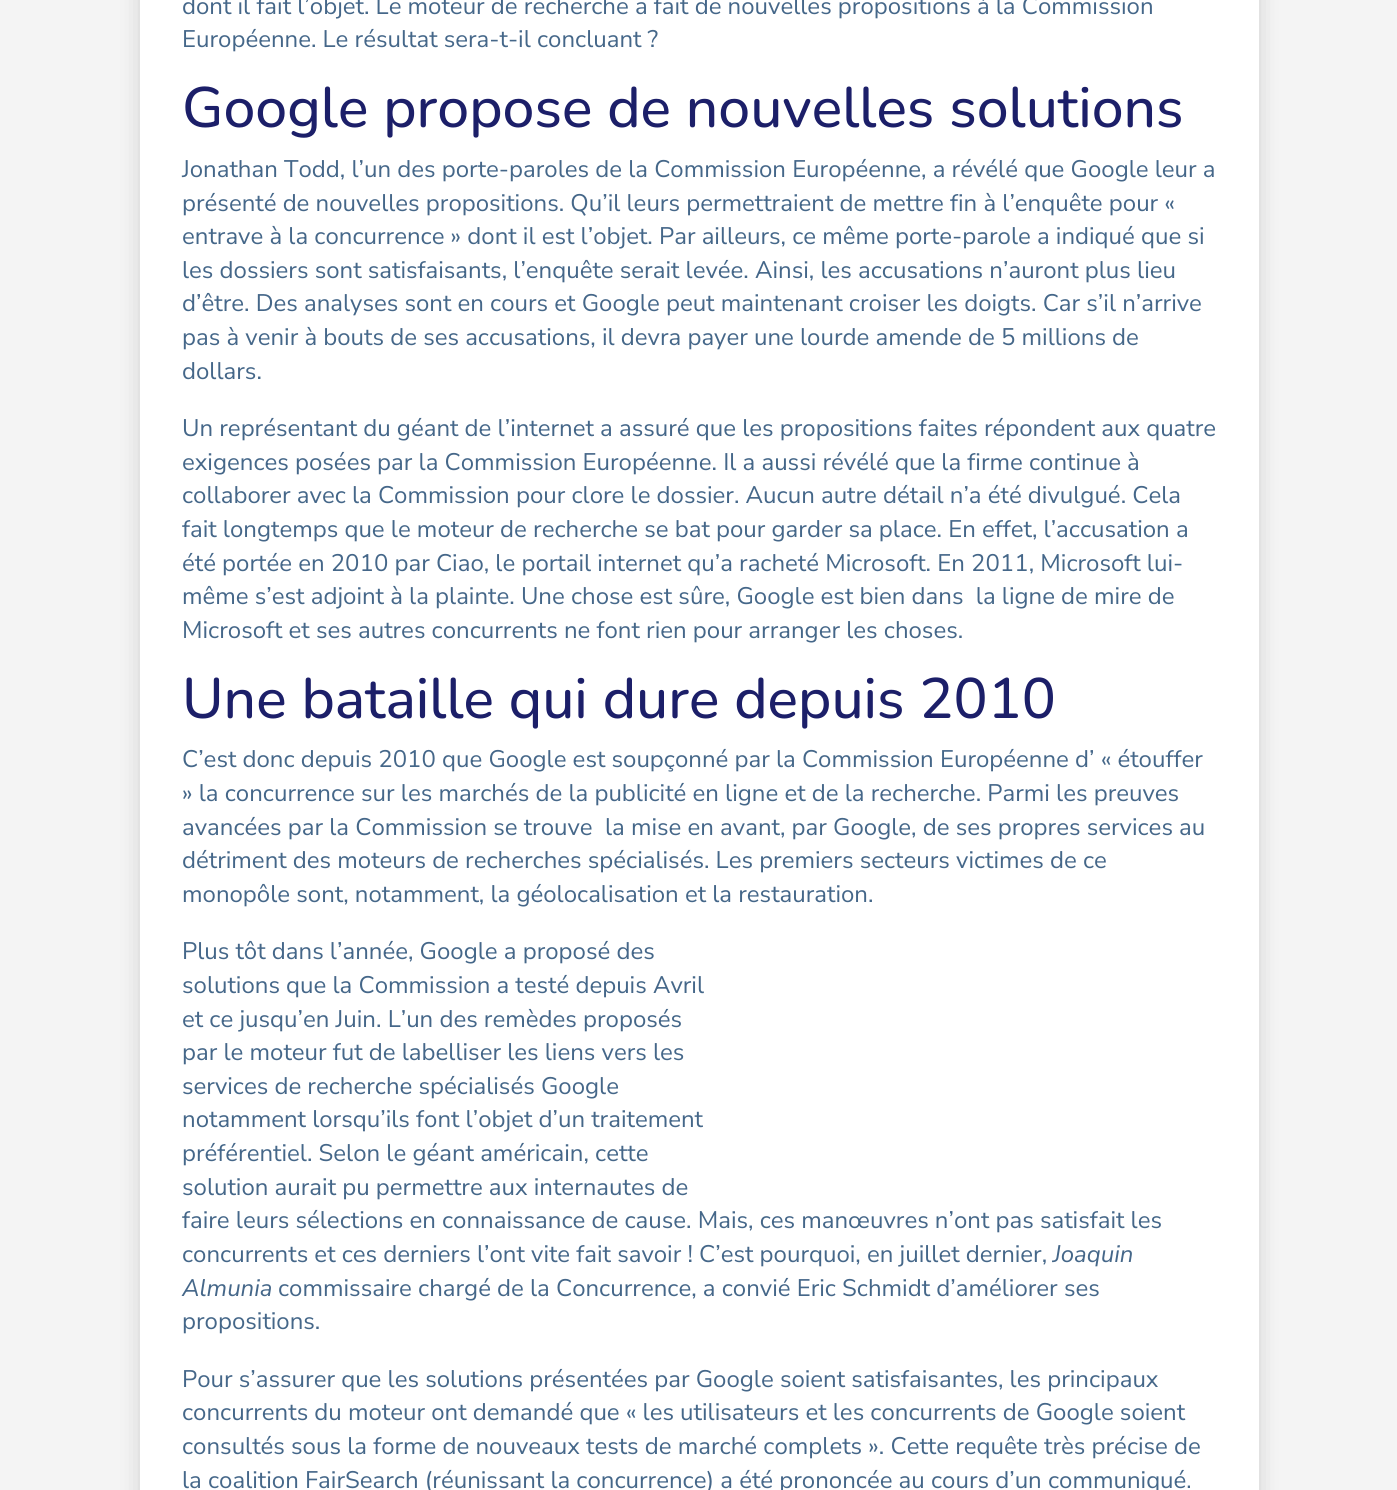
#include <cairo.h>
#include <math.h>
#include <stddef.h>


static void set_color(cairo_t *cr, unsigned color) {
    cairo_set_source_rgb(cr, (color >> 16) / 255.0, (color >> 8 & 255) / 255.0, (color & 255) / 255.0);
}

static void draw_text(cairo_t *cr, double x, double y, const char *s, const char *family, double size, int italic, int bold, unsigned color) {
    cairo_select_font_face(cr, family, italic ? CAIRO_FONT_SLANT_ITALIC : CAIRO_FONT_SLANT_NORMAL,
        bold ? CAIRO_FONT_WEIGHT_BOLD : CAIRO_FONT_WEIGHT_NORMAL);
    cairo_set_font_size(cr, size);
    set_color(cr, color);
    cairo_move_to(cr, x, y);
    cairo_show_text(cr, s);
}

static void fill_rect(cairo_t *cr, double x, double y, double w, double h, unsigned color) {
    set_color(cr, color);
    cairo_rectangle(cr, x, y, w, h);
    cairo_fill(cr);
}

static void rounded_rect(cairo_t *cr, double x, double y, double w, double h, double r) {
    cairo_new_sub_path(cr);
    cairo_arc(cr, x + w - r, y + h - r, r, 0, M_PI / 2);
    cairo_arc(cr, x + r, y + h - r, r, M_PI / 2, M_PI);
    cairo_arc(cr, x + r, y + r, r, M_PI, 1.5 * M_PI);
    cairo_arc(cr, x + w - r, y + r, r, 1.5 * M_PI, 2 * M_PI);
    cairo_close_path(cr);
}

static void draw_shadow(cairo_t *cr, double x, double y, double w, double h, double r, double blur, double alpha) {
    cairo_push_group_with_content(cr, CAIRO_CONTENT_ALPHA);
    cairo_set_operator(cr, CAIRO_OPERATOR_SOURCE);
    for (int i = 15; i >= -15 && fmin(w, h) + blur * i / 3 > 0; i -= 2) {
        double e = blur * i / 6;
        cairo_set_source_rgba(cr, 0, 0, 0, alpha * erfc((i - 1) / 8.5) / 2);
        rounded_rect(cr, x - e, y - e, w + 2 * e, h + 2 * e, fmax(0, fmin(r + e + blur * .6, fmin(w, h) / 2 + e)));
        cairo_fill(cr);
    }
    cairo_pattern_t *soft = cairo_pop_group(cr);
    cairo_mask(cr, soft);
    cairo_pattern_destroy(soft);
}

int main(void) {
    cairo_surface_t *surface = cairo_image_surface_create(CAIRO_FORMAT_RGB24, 1397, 1490);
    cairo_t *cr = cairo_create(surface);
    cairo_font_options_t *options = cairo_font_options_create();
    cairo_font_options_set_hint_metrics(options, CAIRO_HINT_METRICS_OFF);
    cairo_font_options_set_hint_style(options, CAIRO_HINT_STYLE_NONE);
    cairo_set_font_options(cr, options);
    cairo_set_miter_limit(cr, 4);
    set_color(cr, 0xF4F4F4);
    cairo_paint(cr);
    set_color(cr, 0x000000);
    draw_shadow(cr, 149, -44, 1101, 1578, 3, 13.5, 0.3);
    fill_rect(cr, 140, 0, 1119, 1490, 0xFFFFFF);
    draw_text(cr, 182, 14, "dont il fait l’objet. Le moteur de recherche a fait de nouvelles propositions à la Commission", "Nunito Sans", 24, 0, 0, 0x456789);
    draw_text(cr, 182, 47, "Européenne. Le résultat sera-t-il concluant ?", "Nunito Sans", 24, 0, 0, 0x456789);
    draw_text(cr, 182, 127, "Google propose de nouvelles solutions", "Nunito Medium", 56.9, 0, 0, 0x1C1F69);
    draw_text(cr, 182, 177, "Jonathan Todd, l’un des porte-paroles de la Commission Européenne, a révélé que Google leur a", "Nunito Sans", 24, 0, 0, 0x456789);
    draw_text(cr, 182, 211, "présenté de nouvelles propositions. Qu’il leurs permettraient de mettre fin à l’enquête pour «", "Nunito Sans", 24, 0, 0, 0x456789);
    draw_text(cr, 182, 244, "entrave à la concurrence » dont il est l’objet. Par ailleurs, ce même porte-parole a indiqué que si", "Nunito Sans", 24, 0, 0, 0x456789);
    draw_text(cr, 182, 278, "les dossiers sont satisfaisants, l’enquête serait levée. Ainsi, les accusations n’auront plus lieu", "Nunito Sans", 24, 0, 0, 0x456789);
    draw_text(cr, 182, 311, "d’être. Des analyses sont en cours et Google peut maintenant croiser les doigts. Car s’il n’arrive", "Nunito Sans", 24, 0, 0, 0x456789);
    draw_text(cr, 182, 345, "pas à venir à bouts de ses accusations, il devra payer une lourde amende de 5 millions de", "Nunito Sans", 24, 0, 0, 0x456789);
    draw_text(cr, 182, 379, "dollars.", "Nunito Sans", 24, 0, 0, 0x456789);
    draw_text(cr, 182, 436, "Un représentant du géant de l’internet a assuré que les propositions faites répondent aux quatre", "Nunito Sans", 24, 0, 0, 0x456789);
    draw_text(cr, 182, 470, "exigences posées par la Commission Européenne. Il a aussi révélé que la firme continue à", "Nunito Sans", 24, 0, 0, 0x456789);
    draw_text(cr, 182, 503, "collaborer avec la Commission pour clore le dossier. Aucun autre détail n’a été divulgué. Cela", "Nunito Sans", 24, 0, 0, 0x456789);
    draw_text(cr, 182, 537, "fait longtemps que le moteur de recherche se bat pour garder sa place. En effet, l’accusation a", "Nunito Sans", 24, 0, 0, 0x456789);
    draw_text(cr, 182, 571, "été portée en 2010 par Ciao, le portail internet qu’a racheté Microsoft. En 2011, Microsoft lui-", "Nunito Sans", 24, 0, 0, 0x456789);
    draw_text(cr, 182, 604, "même s’est adjoint à la plainte. Une chose est sûre, Google est bien dans  la ligne de mire de", "Nunito Sans", 24, 0, 0, 0x456789);
    draw_text(cr, 182, 638, "Microsoft et ses autres concurrents ne font rien pour arranger les choses.", "Nunito Sans", 24, 0, 0, 0x456789);
    draw_text(cr, 182, 718, "Une bataille qui dure depuis 2010", "Nunito Medium", 56.9, 0, 0, 0x1C1F69);
    draw_text(cr, 182, 767, "C’est donc depuis 2010 que Google est soupçonné par la Commission Européenne d’ « étouffer", "Nunito Sans", 24, 0, 0, 0x456789);
    draw_text(cr, 182, 801, "» la concurrence sur les marchés de la publicité en ligne et de la recherche. Parmi les preuves", "Nunito Sans", 24, 0, 0, 0x456789);
    draw_text(cr, 182, 835, "avancées par la Commission se trouve  la mise en avant, par Google, de ses propres services au", "Nunito Sans", 24, 0, 0, 0x456789);
    draw_text(cr, 182, 868, "détriment des moteurs de recherches spécialisés. Les premiers secteurs victimes de ce", "Nunito Sans", 24, 0, 0, 0x456789);
    draw_text(cr, 182, 902, "monopôle sont, notamment, la géolocalisation et la restauration.", "Nunito Sans", 24, 0, 0, 0x456789);
    draw_text(cr, 182, 959, "Plus tôt dans l’année, Google a proposé des", "Nunito Sans", 24, 0, 0, 0x456789);
    draw_text(cr, 182, 993, "solutions que la Commission a testé depuis Avril", "Nunito Sans", 24, 0, 0, 0x456789);
    draw_text(cr, 182, 1027, "et ce jusqu’en Juin. L’un des remèdes proposés", "Nunito Sans", 24, 0, 0, 0x456789);
    draw_text(cr, 182, 1060, "par le moteur fut de labelliser les liens vers les", "Nunito Sans", 24, 0, 0, 0x456789);
    draw_text(cr, 182, 1094, "services de recherche spécialisés Google", "Nunito Sans", 24, 0, 0, 0x456789);
    draw_text(cr, 182, 1127, "notamment lorsqu’ils font l’objet d’un traitement", "Nunito Sans", 24, 0, 0, 0x456789);
    draw_text(cr, 182, 1161, "préférentiel. Selon le géant américain, cette", "Nunito Sans", 24, 0, 0, 0x456789);
    draw_text(cr, 182, 1195, "solution aurait pu permettre aux internautes de", "Nunito Sans", 24, 0, 0, 0x456789);
    draw_text(cr, 182, 1228, "faire leurs sélections en connaissance de cause. Mais, ces manœuvres n’ont pas satisfait les", "Nunito Sans", 24, 0, 0, 0x456789);
    draw_text(cr, 182, 1262, "concurrents et ces derniers l’ont vite fait savoir ! C’est pourquoi, en juillet dernier,", "Nunito Sans", 24, 0, 0, 0x456789);
    draw_text(cr, 1053, 1262, "Joaquin", "Nunito Sans", 24, 1, 0, 0x456789);
    draw_text(cr, 182, 1296, "Almunia", "Nunito Sans", 24, 1, 0, 0x456789);
    draw_text(cr, 278, 1296, "commissaire chargé de la Concurrence, a convié Eric Schmidt d’améliorer ses", "Nunito Sans", 24, 0, 0, 0x456789);
    draw_text(cr, 182, 1329, "propositions.", "Nunito Sans", 24, 0, 0, 0x456789);
    draw_text(cr, 182, 1387, "Pour s’assurer que les solutions présentées par Google soient satisfaisantes, les principaux", "Nunito Sans", 24, 0, 0, 0x456789);
    draw_text(cr, 182, 1420, "concurrents du moteur ont demandé que « les utilisateurs et les concurrents de Google soient", "Nunito Sans", 24, 0, 0, 0x456789);
    draw_text(cr, 182, 1454, "consultés sous la forme de nouveaux tests de marché complets ». Cette requête très précise de", "Nunito Sans", 24, 0, 0, 0x456789);
    draw_text(cr, 182, 1488, "la coalition FairSearch (réunissant la concurrence) a été prononcée au cours d’un communiqué.", "Nunito Sans", 24, 0, 0, 0x456789);
    cairo_surface_write_to_png(surface, "output.png");
    cairo_font_options_destroy(options);
    cairo_destroy(cr);
    cairo_surface_destroy(surface);
    return 0;
}
